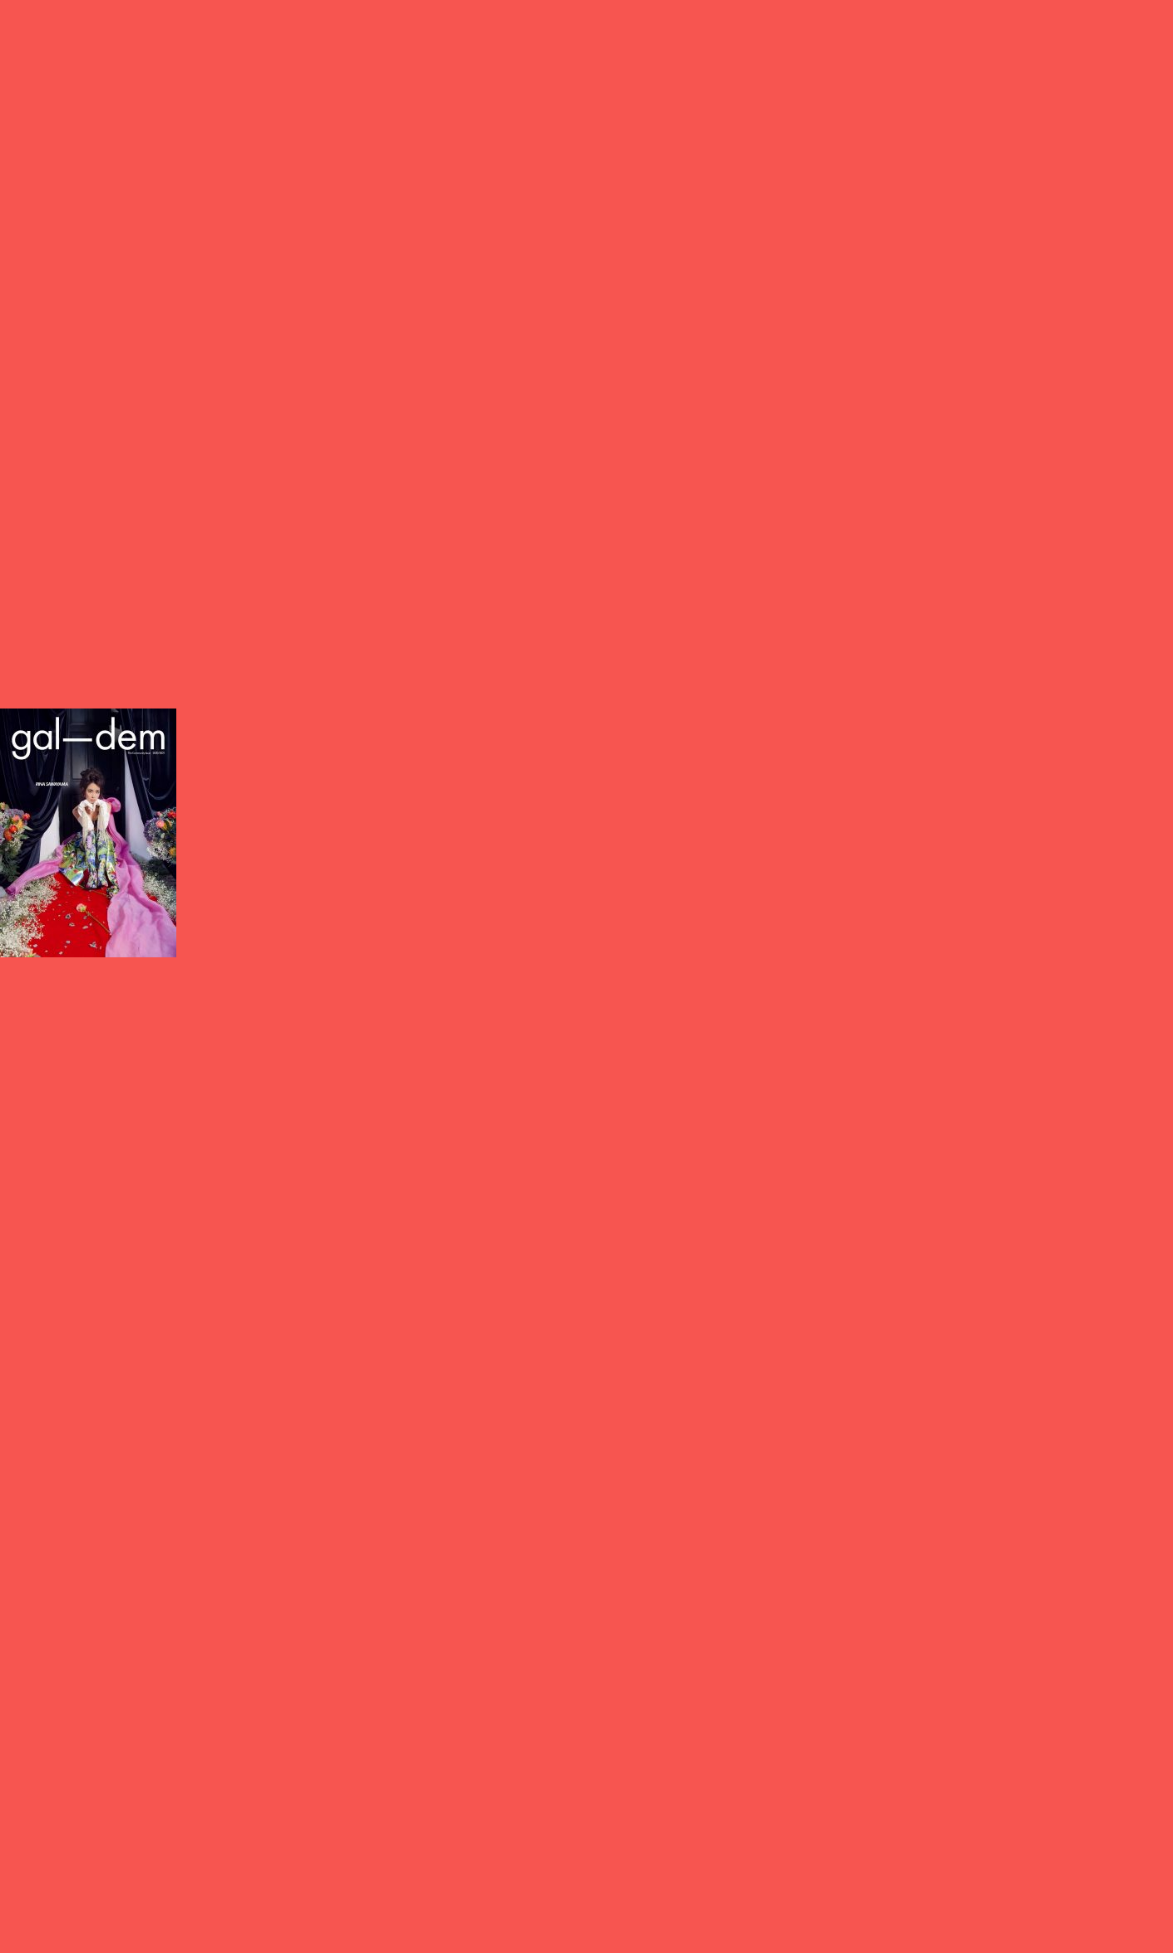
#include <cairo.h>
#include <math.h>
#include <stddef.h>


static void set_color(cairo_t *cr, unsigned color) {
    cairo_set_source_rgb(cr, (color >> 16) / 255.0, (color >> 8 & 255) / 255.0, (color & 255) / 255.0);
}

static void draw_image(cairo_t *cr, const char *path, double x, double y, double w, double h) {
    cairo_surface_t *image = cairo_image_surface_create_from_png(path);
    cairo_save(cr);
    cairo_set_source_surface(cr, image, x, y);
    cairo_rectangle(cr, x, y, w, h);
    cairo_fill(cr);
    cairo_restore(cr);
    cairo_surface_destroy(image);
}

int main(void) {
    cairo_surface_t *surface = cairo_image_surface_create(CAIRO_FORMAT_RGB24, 1173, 1953);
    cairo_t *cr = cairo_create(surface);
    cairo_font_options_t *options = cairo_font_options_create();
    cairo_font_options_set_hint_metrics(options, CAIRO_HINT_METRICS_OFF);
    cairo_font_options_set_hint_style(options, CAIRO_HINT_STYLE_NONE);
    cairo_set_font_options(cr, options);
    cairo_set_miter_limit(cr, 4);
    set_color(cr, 0xF75550);
    cairo_paint(cr);
    draw_image(cr, "assets/img1.png", 0, 708, 177, 250);
    cairo_surface_write_to_png(surface, "output.png");
    cairo_font_options_destroy(options);
    cairo_destroy(cr);
    cairo_surface_destroy(surface);
    return 0;
}
